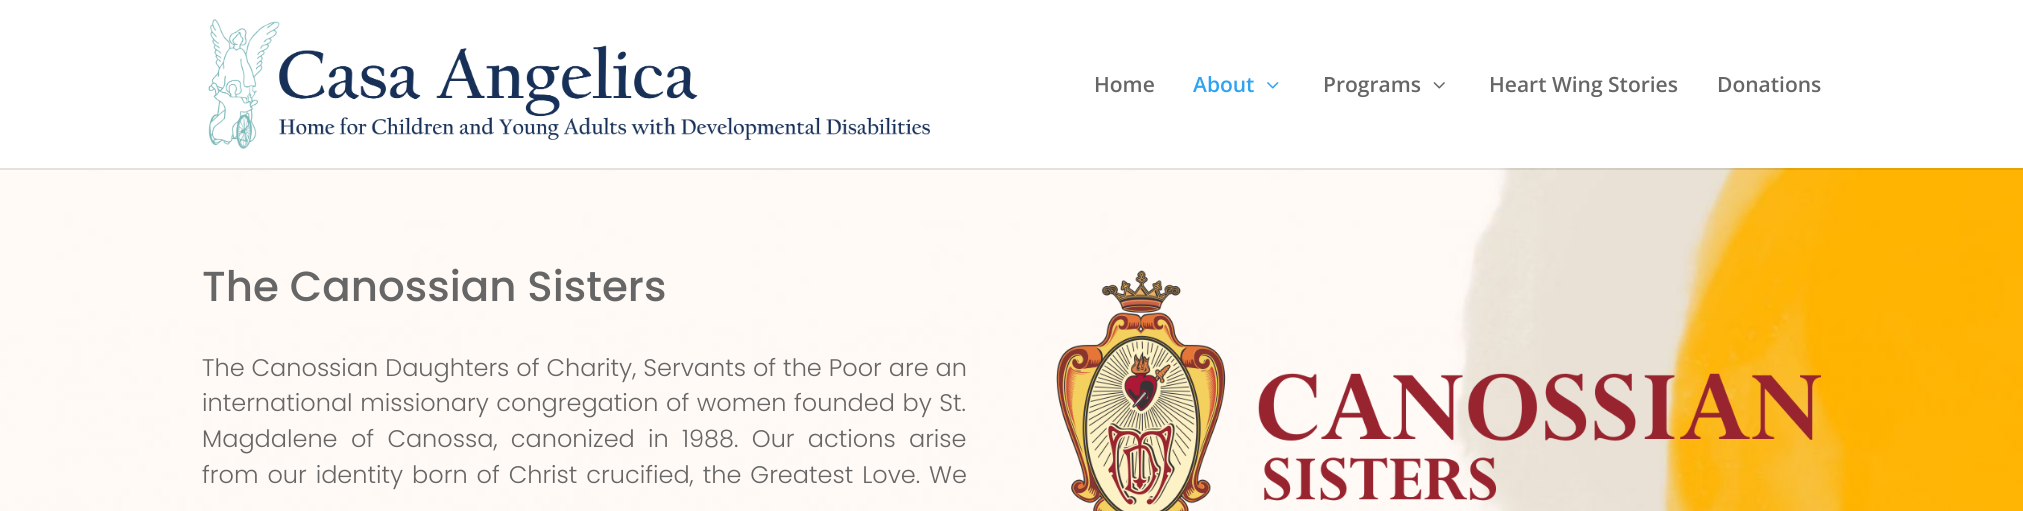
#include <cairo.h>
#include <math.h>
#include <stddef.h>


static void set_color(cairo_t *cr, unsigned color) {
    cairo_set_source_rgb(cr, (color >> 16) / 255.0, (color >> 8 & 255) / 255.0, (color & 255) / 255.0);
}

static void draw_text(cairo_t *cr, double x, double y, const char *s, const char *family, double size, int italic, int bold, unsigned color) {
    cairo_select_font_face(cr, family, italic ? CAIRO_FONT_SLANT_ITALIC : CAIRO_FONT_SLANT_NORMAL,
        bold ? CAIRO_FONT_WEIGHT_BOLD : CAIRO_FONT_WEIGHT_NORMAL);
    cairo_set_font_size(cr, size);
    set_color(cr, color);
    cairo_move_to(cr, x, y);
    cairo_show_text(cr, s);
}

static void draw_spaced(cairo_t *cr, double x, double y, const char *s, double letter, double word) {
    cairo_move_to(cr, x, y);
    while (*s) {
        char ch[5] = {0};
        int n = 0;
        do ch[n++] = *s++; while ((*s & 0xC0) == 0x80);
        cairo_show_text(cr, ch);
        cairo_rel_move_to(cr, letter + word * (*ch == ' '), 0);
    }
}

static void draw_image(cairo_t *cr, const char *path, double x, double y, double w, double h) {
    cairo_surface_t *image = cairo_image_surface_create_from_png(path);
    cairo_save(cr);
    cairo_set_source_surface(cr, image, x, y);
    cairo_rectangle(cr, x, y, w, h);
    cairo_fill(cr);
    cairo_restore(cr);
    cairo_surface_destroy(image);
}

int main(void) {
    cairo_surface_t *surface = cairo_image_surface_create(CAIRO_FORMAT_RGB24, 2023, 511);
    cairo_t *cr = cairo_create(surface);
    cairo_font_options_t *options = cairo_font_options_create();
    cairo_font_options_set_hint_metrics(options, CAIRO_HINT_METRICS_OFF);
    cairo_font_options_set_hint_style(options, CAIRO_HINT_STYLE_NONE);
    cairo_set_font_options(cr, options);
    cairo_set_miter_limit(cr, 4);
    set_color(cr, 0xFFFFFF);
    cairo_paint(cr);
    draw_image(cr, "assets/img4.png", 0, 168, 2023, 343);
    cairo_set_source_rgba(cr, 0, 0, 0, 0.1);
    cairo_new_path(cr);
    cairo_move_to(cr, 0, 168);
    cairo_line_to(cr, 0, 170);
    cairo_line_to(cr, 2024, 170);
    cairo_line_to(cr, 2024, 2);
    cairo_line_to(cr, 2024, 168);
    cairo_close_path(cr);
    cairo_fill(cr);
    draw_image(cr, "assets/img1.png", 208, 19, 722, 130);
    draw_text(cr, 1094, 92, "Home", "Open Sans SemiBold", 21, 0, 0, 0x666666);
    draw_text(cr, 1193, 92, "About", "Open Sans SemiBold", 21, 0, 0, 0x2EA3F2);
    draw_image(cr, "assets/img2.png", 1267, 82, 12, 7);
    draw_text(cr, 1323, 92, "Programs", "Open Sans SemiBold", 21, 0, 0, 0x666666);
    draw_image(cr, "assets/img3.png", 1433, 82, 12, 7);
    draw_text(cr, 1489, 92, "Heart Wing Stories", "Open Sans SemiBold", 21, 0, 0, 0x666666);
    draw_text(cr, 1717, 92, "Donations", "Open Sans SemiBold", 21, 0, 0, 0x666666);
    draw_text(cr, 202, 301, "The Canossian Sisters", "Poppins Medium", 42, 0, 0, 0x666666);
    cairo_select_font_face(cr, "Poppins Light", CAIRO_FONT_SLANT_NORMAL, CAIRO_FONT_WEIGHT_NORMAL);
    cairo_set_font_size(cr, 24);
    draw_spaced(cr, 202, 376, "The Canossian Daughters of Charity, Servants of the Poor are an", 0, 0.4);
    draw_spaced(cr, 202, 411, "international missionary congregation of women founded by St.", 0, 1);
    draw_spaced(cr, 202, 447, "Magdalene of Canossa, canonized in 1988. Our actions arise", 0, 6.75);
    draw_spaced(cr, 202, 483, "from our identity born of Christ crucified, the Greatest Love. We", 0, 2.4);
    draw_image(cr, "assets/img5.png", 1056, 270, 765, 241);
    cairo_surface_write_to_png(surface, "output.png");
    cairo_font_options_destroy(options);
    cairo_destroy(cr);
    cairo_surface_destroy(surface);
    return 0;
}
